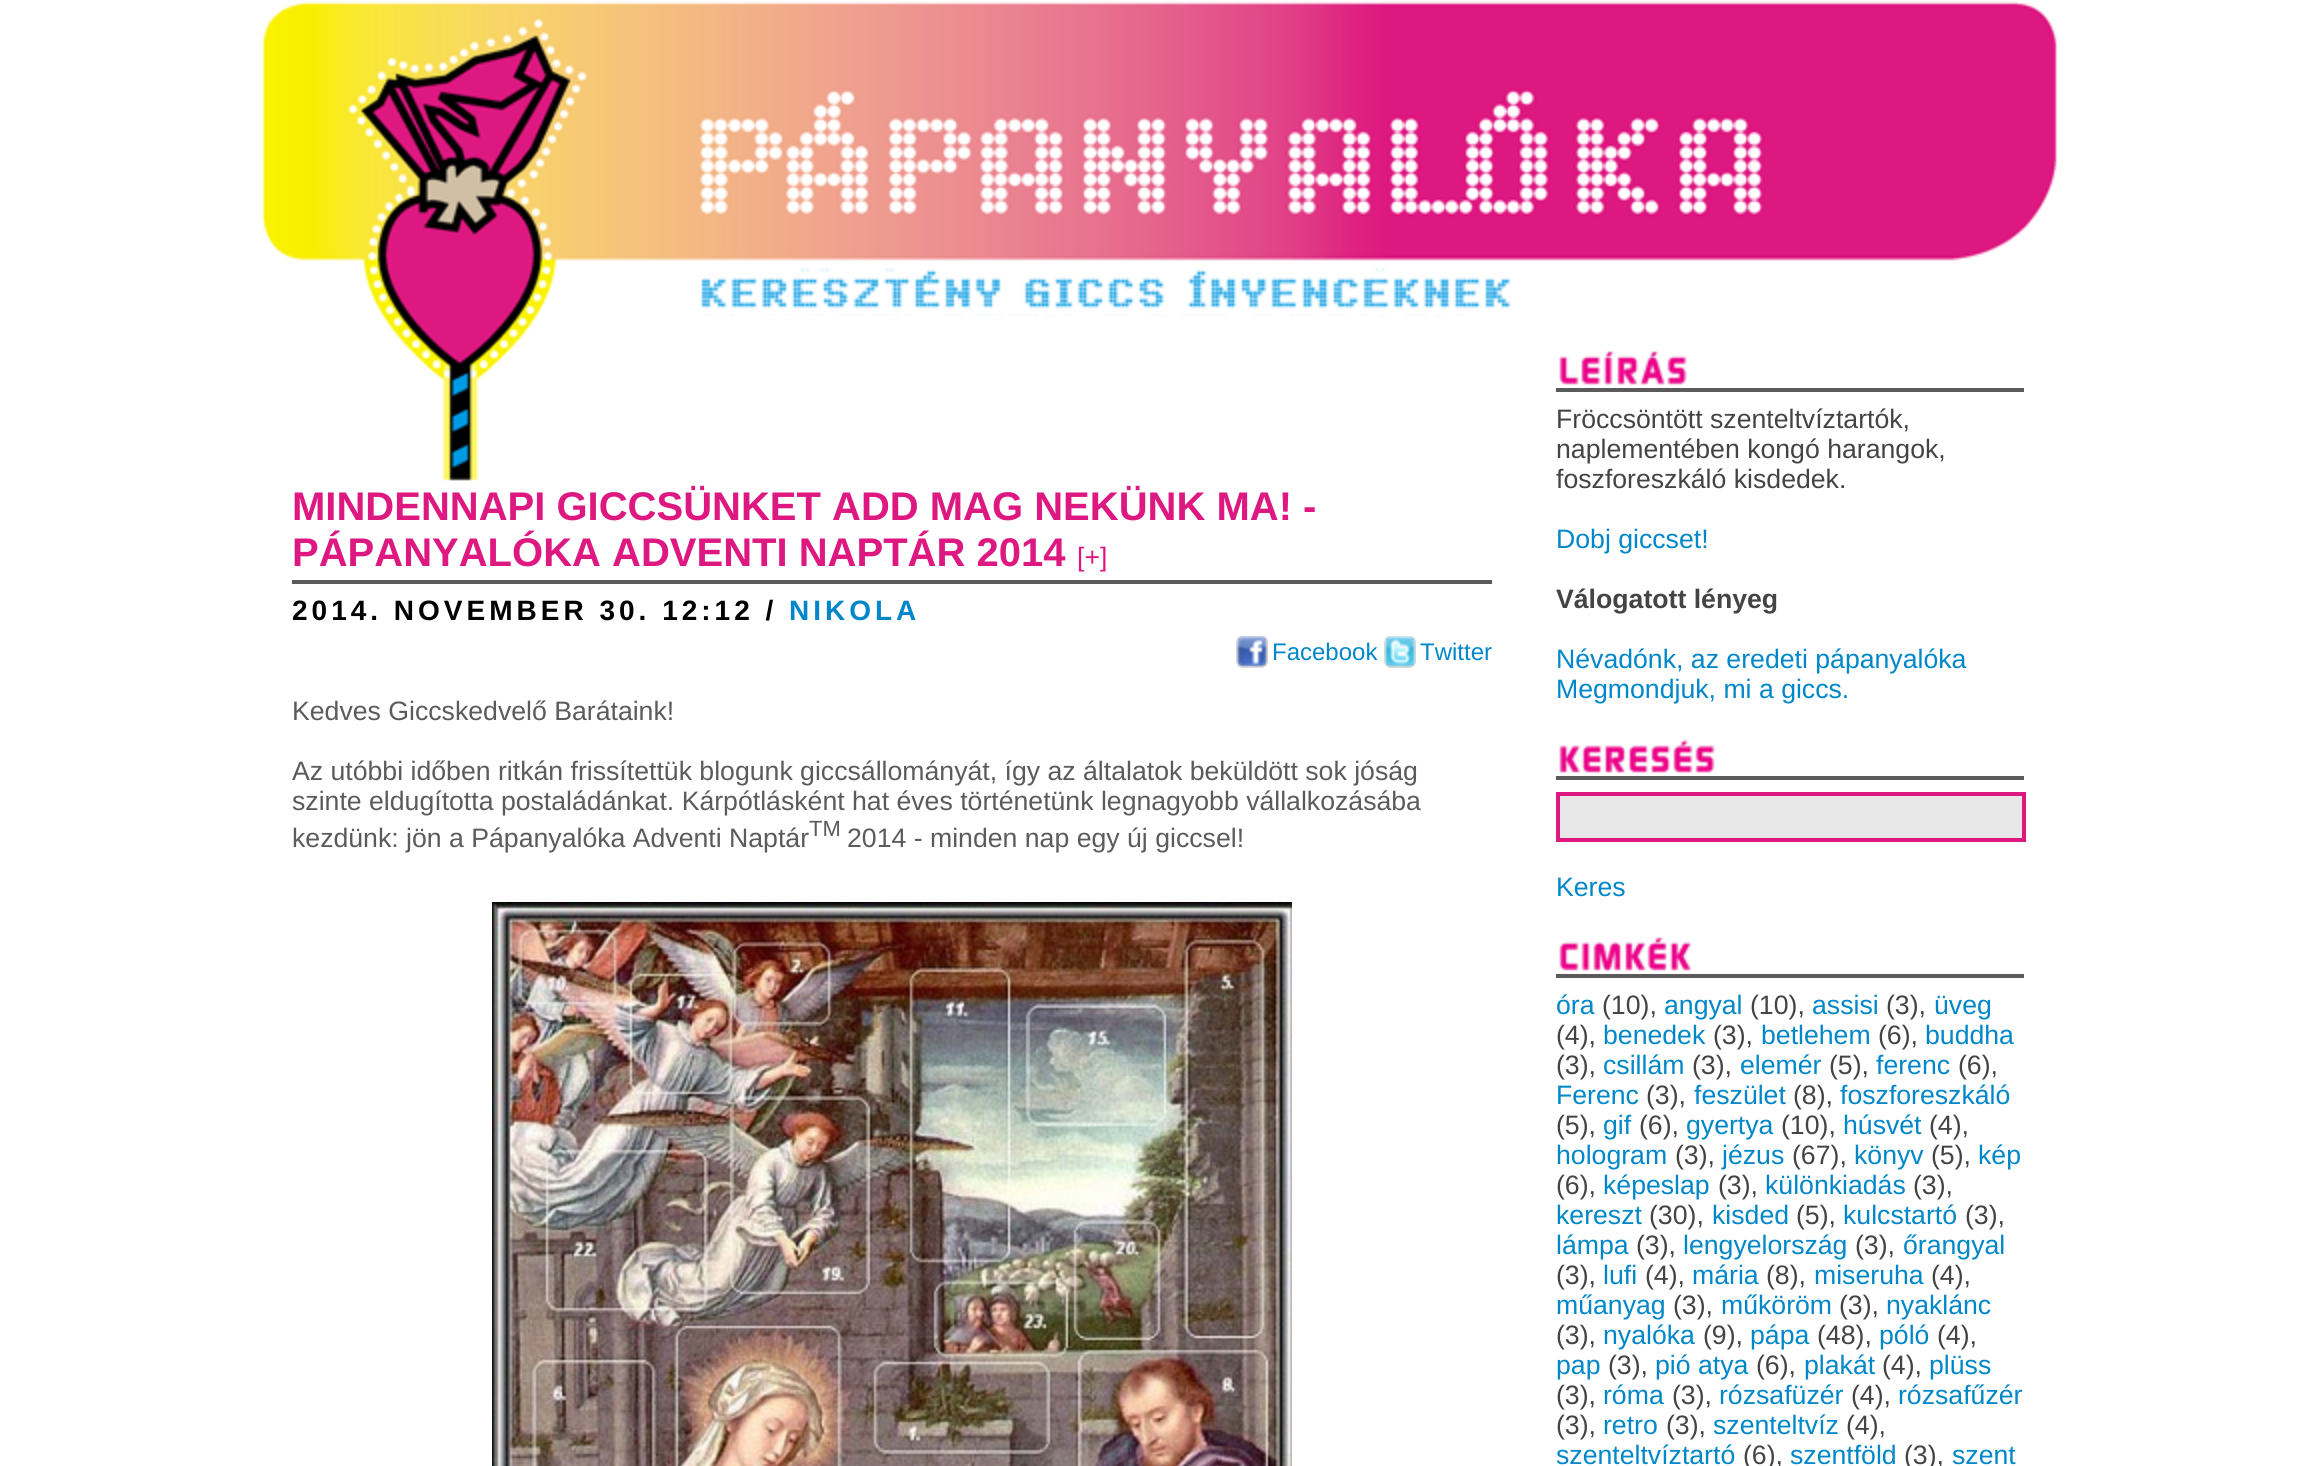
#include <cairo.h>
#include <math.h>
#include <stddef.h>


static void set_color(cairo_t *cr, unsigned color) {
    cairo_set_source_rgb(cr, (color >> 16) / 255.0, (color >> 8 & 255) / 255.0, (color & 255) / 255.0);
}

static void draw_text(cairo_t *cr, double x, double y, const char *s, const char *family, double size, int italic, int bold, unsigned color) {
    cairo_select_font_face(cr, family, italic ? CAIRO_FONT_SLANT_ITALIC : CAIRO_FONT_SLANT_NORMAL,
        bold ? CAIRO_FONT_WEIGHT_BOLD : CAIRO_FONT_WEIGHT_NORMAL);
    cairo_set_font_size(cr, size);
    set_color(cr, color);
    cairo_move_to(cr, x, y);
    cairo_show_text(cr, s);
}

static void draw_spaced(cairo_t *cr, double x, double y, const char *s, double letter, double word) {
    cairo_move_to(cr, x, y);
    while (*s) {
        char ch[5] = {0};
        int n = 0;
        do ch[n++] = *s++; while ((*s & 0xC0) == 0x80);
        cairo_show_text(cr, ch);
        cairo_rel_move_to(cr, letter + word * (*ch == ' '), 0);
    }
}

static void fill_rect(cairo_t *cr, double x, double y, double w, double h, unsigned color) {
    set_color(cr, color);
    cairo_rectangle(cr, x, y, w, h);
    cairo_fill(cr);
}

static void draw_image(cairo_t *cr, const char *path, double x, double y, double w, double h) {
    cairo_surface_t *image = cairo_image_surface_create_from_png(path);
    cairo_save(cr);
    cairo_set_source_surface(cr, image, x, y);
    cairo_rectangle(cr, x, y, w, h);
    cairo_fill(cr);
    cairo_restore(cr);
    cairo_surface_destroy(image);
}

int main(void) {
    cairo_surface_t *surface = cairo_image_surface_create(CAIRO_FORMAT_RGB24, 2320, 1466);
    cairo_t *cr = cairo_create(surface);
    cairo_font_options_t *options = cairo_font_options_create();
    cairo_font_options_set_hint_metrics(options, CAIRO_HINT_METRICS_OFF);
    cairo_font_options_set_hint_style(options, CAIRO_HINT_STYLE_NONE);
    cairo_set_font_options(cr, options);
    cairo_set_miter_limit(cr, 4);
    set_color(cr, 0xFFFFFF);
    cairo_paint(cr);
    draw_image(cr, "assets/img1.png", 261, 1, 1797, 480);
    fill_rect(cr, 292, 580, 1200, 4, 0x5B5B5B);
    draw_text(cr, 292, 520, "MINDENNAPI GICCSÜNKET ADD MAG NEKÜNK MA! -", "Liberation Sans", 40, 0, 1, 0xDE1881);
    draw_text(cr, 292, 566, "PÁPANYALÓKA ADVENTI NAPTÁR 2014", "Liberation Sans", 40, 0, 1, 0xDE1881);
    draw_text(cr, 1077, 566, "[+]", "Liberation Sans", 26.65, 0, 0, 0xDE1881);
    cairo_select_font_face(cr, "Liberation Sans", CAIRO_FONT_SLANT_NORMAL, CAIRO_FONT_WEIGHT_BOLD);
    cairo_set_font_size(cr, 28);
    set_color(cr, 0x000000);
    draw_spaced(cr, 292, 620, "2014. NOVEMBER 30. 12:12 /", 4, 0);
    set_color(cr, 0x0087C9);
    draw_spaced(cr, 789, 620, "NIKOLA", 4, 0);
    draw_image(cr, "assets/img2.png", 1236, 636, 32, 32);
    draw_text(cr, 1272, 660, "Facebook", "Liberation Sans", 24, 0, 0, 0x0087C9);
    draw_image(cr, "assets/img3.png", 1384, 636, 32, 32);
    draw_text(cr, 1420, 660, "Twitter", "Liberation Sans", 24, 0, 0, 0x0087C9);
    draw_text(cr, 292, 720, "Kedves Giccskedvelő Barátaink!", "Liberation Sans", 26.65, 0, 0, 0x5B5B5B);
    draw_text(cr, 292, 780, "Az utóbbi időben ritkán frissítettük blogunk giccsállományát, így az általatok beküldött sok jóság", "Liberation Sans", 26.65, 0, 0, 0x5B5B5B);
    draw_text(cr, 292, 810, "szinte eldugította postaládánkat. Kárpótlásként hat éves történetünk legnagyobb vállalkozásába", "Liberation Sans", 26.65, 0, 0, 0x5B5B5B);
    draw_text(cr, 292, 847, "kezdünk: jön a Pápanyalóka Adventi Naptár", "Liberation Sans", 26.65, 0, 0, 0x5B5B5B);
    draw_text(cr, 809, 836, "TM", "Liberation Sans", 22, 0, 0, 0x5B5B5B);
    draw_text(cr, 847, 847, "2014 - minden nap egy új giccsel!", "Liberation Sans", 26.65, 0, 0, 0x5B5B5B);
    draw_image(cr, "assets/img4.png", 492, 902, 800, 564);
    draw_image(cr, "assets/img5.png", 1559, 350, 128, 35);
    fill_rect(cr, 1556, 388, 468, 4, 0x5B5B5B);
    draw_text(cr, 1556, 428, "Fröccsöntött szenteltvíztartók,", "Liberation Sans", 26.65, 0, 0, 0x444444);
    draw_text(cr, 1556, 458, "naplementében kongó harangok,", "Liberation Sans", 26.65, 0, 0, 0x444444);
    draw_text(cr, 1556, 488, "foszforeszkáló kisdedek.", "Liberation Sans", 26.65, 0, 0, 0x444444);
    draw_text(cr, 1556, 548, "Dobj giccset!", "Liberation Sans", 26.65, 0, 0, 0x0087C9);
    draw_text(cr, 1556, 608, "Válogatott lényeg", "Liberation Sans", 26.65, 0, 1, 0x444444);
    draw_text(cr, 1556, 668, "Névadónk, az eredeti pápanyalóka", "Liberation Sans", 26.65, 0, 0, 0x0087C9);
    draw_text(cr, 1556, 698, "Megmondjuk, mi a giccs.", "Liberation Sans", 26.65, 0, 0, 0x0087C9);
    draw_image(cr, "assets/img6.png", 1559, 739, 156, 35);
    fill_rect(cr, 1556, 776, 468, 4, 0x5B5B5B);
    set_color(cr, 0xE7E7E7);
    cairo_rectangle(cr, 1558, 794, 466, 46);
    cairo_fill_preserve(cr);
    set_color(cr, 0xDE1881);
    cairo_set_line_width(cr, 4);
    cairo_stroke(cr);
    draw_text(cr, 1556, 896, "Keres", "Liberation Sans", 26.65, 0, 0, 0x0087C9);
    draw_image(cr, "assets/img7.png", 1559, 936, 133, 36);
    fill_rect(cr, 1556, 974, 468, 4, 0x5B5B5B);
    draw_text(cr, 1556, 1014, "óra", "Liberation Sans", 26.65, 0, 0, 0x0087C9);
    draw_text(cr, 1602, 1014, "(10),", "Liberation Sans", 26.65, 0, 0, 0x444444);
    draw_text(cr, 1664, 1014, "angyal", "Liberation Sans", 26.65, 0, 0, 0x0087C9);
    draw_text(cr, 1750, 1014, "(10),", "Liberation Sans", 26.65, 0, 0, 0x444444);
    draw_text(cr, 1812, 1014, "assisi", "Liberation Sans", 26.65, 0, 0, 0x0087C9);
    draw_text(cr, 1886, 1014, "(3),", "Liberation Sans", 26.65, 0, 0, 0x444444);
    draw_text(cr, 1934, 1014, "üveg", "Liberation Sans", 26.65, 0, 0, 0x0087C9);
    draw_text(cr, 1556, 1044, "(4),", "Liberation Sans", 26.65, 0, 0, 0x444444);
    draw_text(cr, 1603, 1044, "benedek", "Liberation Sans", 26.65, 0, 0, 0x0087C9);
    draw_text(cr, 1713, 1044, "(3),", "Liberation Sans", 26.65, 0, 0, 0x444444);
    draw_text(cr, 1761, 1044, "betlehem", "Liberation Sans", 26.65, 0, 0, 0x0087C9);
    draw_text(cr, 1878, 1044, "(6),", "Liberation Sans", 26.65, 0, 0, 0x444444);
    draw_text(cr, 1925, 1044, "buddha", "Liberation Sans", 26.65, 0, 0, 0x0087C9);
    draw_text(cr, 1556, 1074, "(3),", "Liberation Sans", 26.65, 0, 0, 0x444444);
    draw_text(cr, 1603, 1074, "csillám", "Liberation Sans", 26.65, 0, 0, 0x0087C9);
    draw_text(cr, 1692, 1074, "(3),", "Liberation Sans", 26.65, 0, 0, 0x444444);
    draw_text(cr, 1740, 1074, "elemér", "Liberation Sans", 26.65, 0, 0, 0x0087C9);
    draw_text(cr, 1829, 1074, "(5),", "Liberation Sans", 26.65, 0, 0, 0x444444);
    draw_text(cr, 1876, 1074, "ferenc", "Liberation Sans", 26.65, 0, 0, 0x0087C9);
    draw_text(cr, 1958, 1074, "(6),", "Liberation Sans", 26.65, 0, 0, 0x444444);
    draw_text(cr, 1556, 1104, "Ferenc", "Liberation Sans", 26.65, 0, 0, 0x0087C9);
    draw_text(cr, 1646, 1104, "(3),", "Liberation Sans", 26.65, 0, 0, 0x444444);
    draw_text(cr, 1694, 1104, "feszület", "Liberation Sans", 26.65, 0, 0, 0x0087C9);
    draw_text(cr, 1793, 1104, "(8),", "Liberation Sans", 26.65, 0, 0, 0x444444);
    draw_text(cr, 1840, 1104, "foszforeszkáló", "Liberation Sans", 26.65, 0, 0, 0x0087C9);
    draw_text(cr, 1556, 1134, "(5),", "Liberation Sans", 26.65, 0, 0, 0x444444);
    draw_text(cr, 1603, 1134, "gif", "Liberation Sans", 26.65, 0, 0, 0x0087C9);
    draw_text(cr, 1639, 1134, "(6),", "Liberation Sans", 26.65, 0, 0, 0x444444);
    draw_text(cr, 1686, 1134, "gyertya", "Liberation Sans", 26.65, 0, 0, 0x0087C9);
    draw_text(cr, 1781, 1134, "(10),", "Liberation Sans", 26.65, 0, 0, 0x444444);
    draw_text(cr, 1843, 1134, "húsvét", "Liberation Sans", 26.65, 0, 0, 0x0087C9);
    draw_text(cr, 1929, 1134, "(4),", "Liberation Sans", 26.65, 0, 0, 0x444444);
    draw_text(cr, 1556, 1164, "hologram", "Liberation Sans", 26.65, 0, 0, 0x0087C9);
    draw_text(cr, 1675, 1164, "(3),", "Liberation Sans", 26.65, 0, 0, 0x444444);
    draw_text(cr, 1722, 1164, "jézus", "Liberation Sans", 26.65, 0, 0, 0x0087C9);
    draw_text(cr, 1792, 1164, "(67),", "Liberation Sans", 26.65, 0, 0, 0x444444);
    draw_text(cr, 1854, 1164, "könyv", "Liberation Sans", 26.65, 0, 0, 0x0087C9);
    draw_text(cr, 1931, 1164, "(5),", "Liberation Sans", 26.65, 0, 0, 0x444444);
    draw_text(cr, 1978, 1164, "kép", "Liberation Sans", 26.65, 0, 0, 0x0087C9);
    draw_text(cr, 1556, 1194, "(6),", "Liberation Sans", 26.65, 0, 0, 0x444444);
    draw_text(cr, 1603, 1194, "képeslap", "Liberation Sans", 26.65, 0, 0, 0x0087C9);
    draw_text(cr, 1718, 1194, "(3),", "Liberation Sans", 26.65, 0, 0, 0x444444);
    draw_text(cr, 1765, 1194, "különkiadás", "Liberation Sans", 26.65, 0, 0, 0x0087C9);
    draw_text(cr, 1913, 1194, "(3),", "Liberation Sans", 26.65, 0, 0, 0x444444);
    draw_text(cr, 1556, 1224, "kereszt", "Liberation Sans", 26.65, 0, 0, 0x0087C9);
    draw_text(cr, 1649, 1224, "(30),", "Liberation Sans", 26.65, 0, 0, 0x444444);
    draw_text(cr, 1712, 1224, "kisded", "Liberation Sans", 26.65, 0, 0, 0x0087C9);
    draw_text(cr, 1796, 1224, "(5),", "Liberation Sans", 26.65, 0, 0, 0x444444);
    draw_text(cr, 1843, 1224, "kulcstartó", "Liberation Sans", 26.65, 0, 0, 0x0087C9);
    draw_text(cr, 1965, 1224, "(3),", "Liberation Sans", 26.65, 0, 0, 0x444444);
    draw_text(cr, 1556, 1254, "lámpa", "Liberation Sans", 26.65, 0, 0, 0x0087C9);
    draw_text(cr, 1636, 1254, "(3),", "Liberation Sans", 26.65, 0, 0, 0x444444);
    draw_text(cr, 1683, 1254, "lengyelország", "Liberation Sans", 26.65, 0, 0, 0x0087C9);
    draw_text(cr, 1855, 1254, "(3),", "Liberation Sans", 26.65, 0, 0, 0x444444);
    draw_text(cr, 1903, 1254, "őrangyal", "Liberation Sans", 26.65, 0, 0, 0x0087C9);
    draw_text(cr, 1556, 1284, "(3),", "Liberation Sans", 26.65, 0, 0, 0x444444);
    draw_text(cr, 1603, 1284, "lufi", "Liberation Sans", 26.65, 0, 0, 0x0087C9);
    draw_text(cr, 1645, 1284, "(4),", "Liberation Sans", 26.65, 0, 0, 0x444444);
    draw_text(cr, 1692, 1284, "mária", "Liberation Sans", 26.65, 0, 0, 0x0087C9);
    draw_text(cr, 1766, 1284, "(8),", "Liberation Sans", 26.65, 0, 0, 0x444444);
    draw_text(cr, 1814, 1284, "miseruha", "Liberation Sans", 26.65, 0, 0, 0x0087C9);
    draw_text(cr, 1931, 1284, "(4),", "Liberation Sans", 26.65, 0, 0, 0x444444);
    draw_text(cr, 1556, 1314, "műanyag", "Liberation Sans", 26.65, 0, 0, 0x0087C9);
    draw_text(cr, 1673, 1314, "(3),", "Liberation Sans", 26.65, 0, 0, 0x444444);
    draw_text(cr, 1721, 1314, "műköröm", "Liberation Sans", 26.65, 0, 0, 0x0087C9);
    draw_text(cr, 1839, 1314, "(3),", "Liberation Sans", 26.65, 0, 0, 0x444444);
    draw_text(cr, 1886, 1314, "nyaklánc", "Liberation Sans", 26.65, 0, 0, 0x0087C9);
    draw_text(cr, 1556, 1344, "(3),", "Liberation Sans", 26.65, 0, 0, 0x444444);
    draw_text(cr, 1603, 1344, "nyalóka", "Liberation Sans", 26.65, 0, 0, 0x0087C9);
    draw_text(cr, 1703, 1344, "(9),", "Liberation Sans", 26.65, 0, 0, 0x444444);
    draw_text(cr, 1750, 1344, "pápa", "Liberation Sans", 26.65, 0, 0, 0x0087C9);
    draw_text(cr, 1817, 1344, "(48),", "Liberation Sans", 26.65, 0, 0, 0x444444);
    draw_text(cr, 1879, 1344, "póló", "Liberation Sans", 26.65, 0, 0, 0x0087C9);
    draw_text(cr, 1937, 1344, "(4),", "Liberation Sans", 26.65, 0, 0, 0x444444);
    draw_text(cr, 1556, 1374, "pap", "Liberation Sans", 26.65, 0, 0, 0x0087C9);
    draw_text(cr, 1608, 1374, "(3),", "Liberation Sans", 26.65, 0, 0, 0x444444);
    draw_text(cr, 1655, 1374, "pió atya", "Liberation Sans", 26.65, 0, 0, 0x0087C9);
    draw_text(cr, 1756, 1374, "(6),", "Liberation Sans", 26.65, 0, 0, 0x444444);
    draw_text(cr, 1804, 1374, "plakát", "Liberation Sans", 26.65, 0, 0, 0x0087C9);
    draw_text(cr, 1882, 1374, "(4),", "Liberation Sans", 26.65, 0, 0, 0x444444);
    draw_text(cr, 1929, 1374, "plüss", "Liberation Sans", 26.65, 0, 0, 0x0087C9);
    draw_text(cr, 1556, 1404, "(3),", "Liberation Sans", 26.65, 0, 0, 0x444444);
    draw_text(cr, 1603, 1404, "róma", "Liberation Sans", 26.65, 0, 0, 0x0087C9);
    draw_text(cr, 1672, 1404, "(3),", "Liberation Sans", 26.65, 0, 0, 0x444444);
    draw_text(cr, 1719, 1404, "rózsafüzér", "Liberation Sans", 26.65, 0, 0, 0x0087C9);
    draw_text(cr, 1851, 1404, "(4),", "Liberation Sans", 26.65, 0, 0, 0x444444);
    draw_text(cr, 1898, 1404, "rózsafűzér", "Liberation Sans", 26.65, 0, 0, 0x0087C9);
    draw_text(cr, 1556, 1434, "(3),", "Liberation Sans", 26.65, 0, 0, 0x444444);
    draw_text(cr, 1603, 1434, "retro", "Liberation Sans", 26.65, 0, 0, 0x0087C9);
    draw_text(cr, 1666, 1434, "(3),", "Liberation Sans", 26.65, 0, 0, 0x444444);
    draw_text(cr, 1713, 1434, "szenteltvíz", "Liberation Sans", 26.65, 0, 0, 0x0087C9);
    draw_text(cr, 1846, 1434, "(4),", "Liberation Sans", 26.65, 0, 0, 0x444444);
    draw_text(cr, 1556, 1464, "szenteltvíztartó", "Liberation Sans", 26.65, 0, 0, 0x0087C9);
    draw_text(cr, 1743, 1464, "(6),", "Liberation Sans", 26.65, 0, 0, 0x444444);
    draw_text(cr, 1790, 1464, "szentföld", "Liberation Sans", 26.65, 0, 0, 0x0087C9);
    draw_text(cr, 1904, 1464, "(3),", "Liberation Sans", 26.65, 0, 0, 0x444444);
    draw_text(cr, 1952, 1464, "szent", "Liberation Sans", 26.65, 0, 0, 0x0087C9);
    cairo_surface_write_to_png(surface, "output.png");
    cairo_font_options_destroy(options);
    cairo_destroy(cr);
    cairo_surface_destroy(surface);
    return 0;
}
